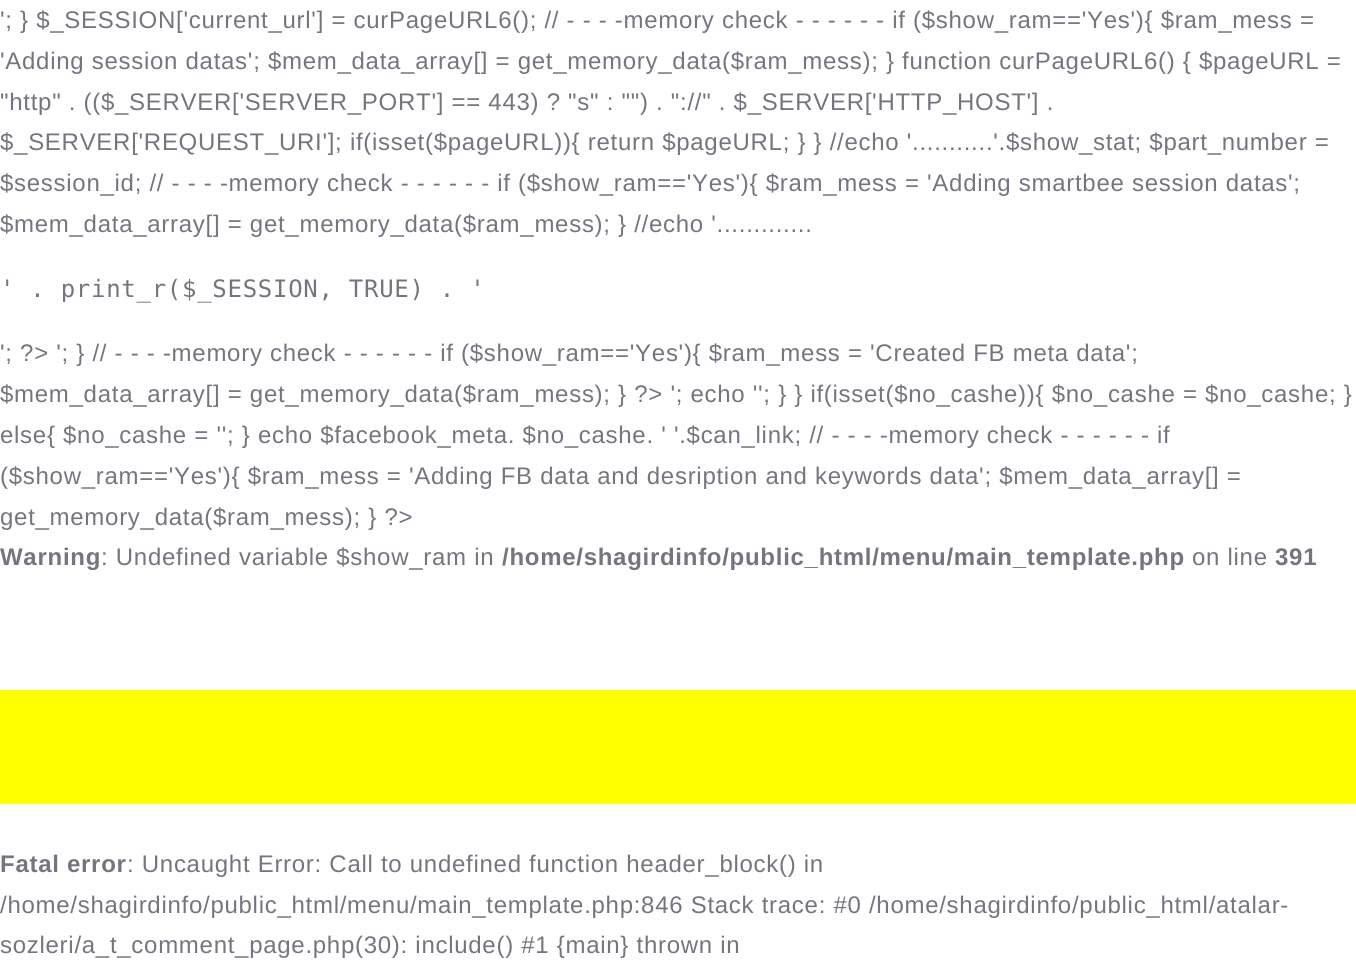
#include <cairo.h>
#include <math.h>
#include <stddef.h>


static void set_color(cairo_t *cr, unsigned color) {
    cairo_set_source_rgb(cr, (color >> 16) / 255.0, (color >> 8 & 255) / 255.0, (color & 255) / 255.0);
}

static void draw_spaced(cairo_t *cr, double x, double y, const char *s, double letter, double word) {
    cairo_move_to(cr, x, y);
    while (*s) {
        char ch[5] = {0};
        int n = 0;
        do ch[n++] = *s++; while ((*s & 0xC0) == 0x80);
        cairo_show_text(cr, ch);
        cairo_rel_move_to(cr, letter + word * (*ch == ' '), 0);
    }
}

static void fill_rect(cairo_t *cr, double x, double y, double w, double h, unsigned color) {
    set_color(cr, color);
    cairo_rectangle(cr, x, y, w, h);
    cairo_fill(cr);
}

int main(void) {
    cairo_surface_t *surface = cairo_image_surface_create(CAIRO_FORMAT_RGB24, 1356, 973);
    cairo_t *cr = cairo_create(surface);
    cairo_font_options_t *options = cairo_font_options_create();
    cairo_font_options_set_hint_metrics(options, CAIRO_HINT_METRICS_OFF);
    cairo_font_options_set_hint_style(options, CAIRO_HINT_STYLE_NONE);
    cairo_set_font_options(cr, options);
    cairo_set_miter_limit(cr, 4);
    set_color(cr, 0xFFFFFF);
    cairo_paint(cr);
    cairo_select_font_face(cr, "Liberation Sans", CAIRO_FONT_SLANT_NORMAL, CAIRO_FONT_WEIGHT_NORMAL);
    cairo_set_font_size(cr, 24);
    set_color(cr, 0x74757F);
    draw_spaced(cr, 0, 28, "'; } $_SESSION['current_url'] = curPageURL6(); // - - - -memory check - - - - - - if ($show_ram=='Yes'){ $ram_mess =", 0.72, 0);
    draw_spaced(cr, 0, 69, "'Adding session datas'; $mem_data_array[] = get_memory_data($ram_mess); } function curPageURL6() { $pageURL =", 0.72, 0);
    draw_spaced(cr, 0, 110, "\"http\" . (($_SERVER['SERVER_PORT'] == 443) ? \"s\" : \"\") . \"://\" . $_SERVER['HTTP_HOST'] .", 0.72, 0);
    draw_spaced(cr, 0, 150, "$_SERVER['REQUEST_URI']; if(isset($pageURL)){ return $pageURL; } } //echo '...........'.$show_stat; $part_number =", 0.72, 0);
    draw_spaced(cr, 0, 191, "$session_id; // - - - -memory check - - - - - - if ($show_ram=='Yes'){ $ram_mess = 'Adding smartbee session datas';", 0.72, 0);
    draw_spaced(cr, 0, 232, "$mem_data_array[] = get_memory_data($ram_mess); } //echo '.............", 0.72, 0);
    cairo_select_font_face(cr, "DejaVu Sans Mono", CAIRO_FONT_SLANT_NORMAL, CAIRO_FONT_WEIGHT_NORMAL);
    draw_spaced(cr, 0, 297, "' . print_r($_SESSION, TRUE) . '", 0.72, 0);
    cairo_select_font_face(cr, "Liberation Sans", CAIRO_FONT_SLANT_NORMAL, CAIRO_FONT_WEIGHT_NORMAL);
    draw_spaced(cr, 0, 361, "'; ?> '; } // - - - -memory check - - - - - - if ($show_ram=='Yes'){ $ram_mess = 'Created FB meta data';", 0.72, 0);
    draw_spaced(cr, 0, 402, "$mem_data_array[] = get_memory_data($ram_mess); } ?> '; echo ''; } } if(isset($no_cashe)){ $no_cashe = $no_cashe; }", 0.72, 0);
    draw_spaced(cr, 0, 443, "else{ $no_cashe = ''; } echo $facebook_meta. $no_cashe. ' '.$can_link; // - - - -memory check - - - - - - if", 0.72, 0);
    draw_spaced(cr, 0, 484, "($show_ram=='Yes'){ $ram_mess = 'Adding FB data and desription and keywords data'; $mem_data_array[] =", 0.72, 0);
    draw_spaced(cr, 0, 525, "get_memory_data($ram_mess); } ?>", 0.72, 0);
    cairo_select_font_face(cr, "Liberation Sans", CAIRO_FONT_SLANT_NORMAL, CAIRO_FONT_WEIGHT_BOLD);
    draw_spaced(cr, 0, 565, "Warning", 0.72, 0);
    cairo_select_font_face(cr, "Liberation Sans", CAIRO_FONT_SLANT_NORMAL, CAIRO_FONT_WEIGHT_NORMAL);
    draw_spaced(cr, 101, 565, ": Undefined variable $show_ram in", 0.72, 0);
    cairo_select_font_face(cr, "Liberation Sans", CAIRO_FONT_SLANT_NORMAL, CAIRO_FONT_WEIGHT_BOLD);
    draw_spaced(cr, 502, 565, "/home/shagirdinfo/public_html/menu/main_template.php", 0.72, 0);
    cairo_select_font_face(cr, "Liberation Sans", CAIRO_FONT_SLANT_NORMAL, CAIRO_FONT_WEIGHT_NORMAL);
    draw_spaced(cr, 1192, 565, "on line", 0.72, 0);
    cairo_select_font_face(cr, "Liberation Sans", CAIRO_FONT_SLANT_NORMAL, CAIRO_FONT_WEIGHT_BOLD);
    draw_spaced(cr, 1275, 565, "391", 0.72, 0);
    fill_rect(cr, 0, 690, 1356, 114, 0xFFFF00);
    set_color(cr, 0x74757F);
    draw_spaced(cr, 0, 872, "Fatal error", 0.72, 0);
    cairo_select_font_face(cr, "Liberation Sans", CAIRO_FONT_SLANT_NORMAL, CAIRO_FONT_WEIGHT_NORMAL);
    draw_spaced(cr, 127, 872, ": Uncaught Error: Call to undefined function header_block() in", 0.72, 0);
    draw_spaced(cr, 0, 913, "/home/shagirdinfo/public_html/menu/main_template.php:846 Stack trace: #0 /home/shagirdinfo/public_html/atalar-", 0.72, 0);
    draw_spaced(cr, 0, 953, "sozleri/a_t_comment_page.php(30): include() #1 {main} thrown in", 0.72, 0);
    cairo_surface_write_to_png(surface, "output.png");
    cairo_font_options_destroy(options);
    cairo_destroy(cr);
    cairo_surface_destroy(surface);
    return 0;
}
